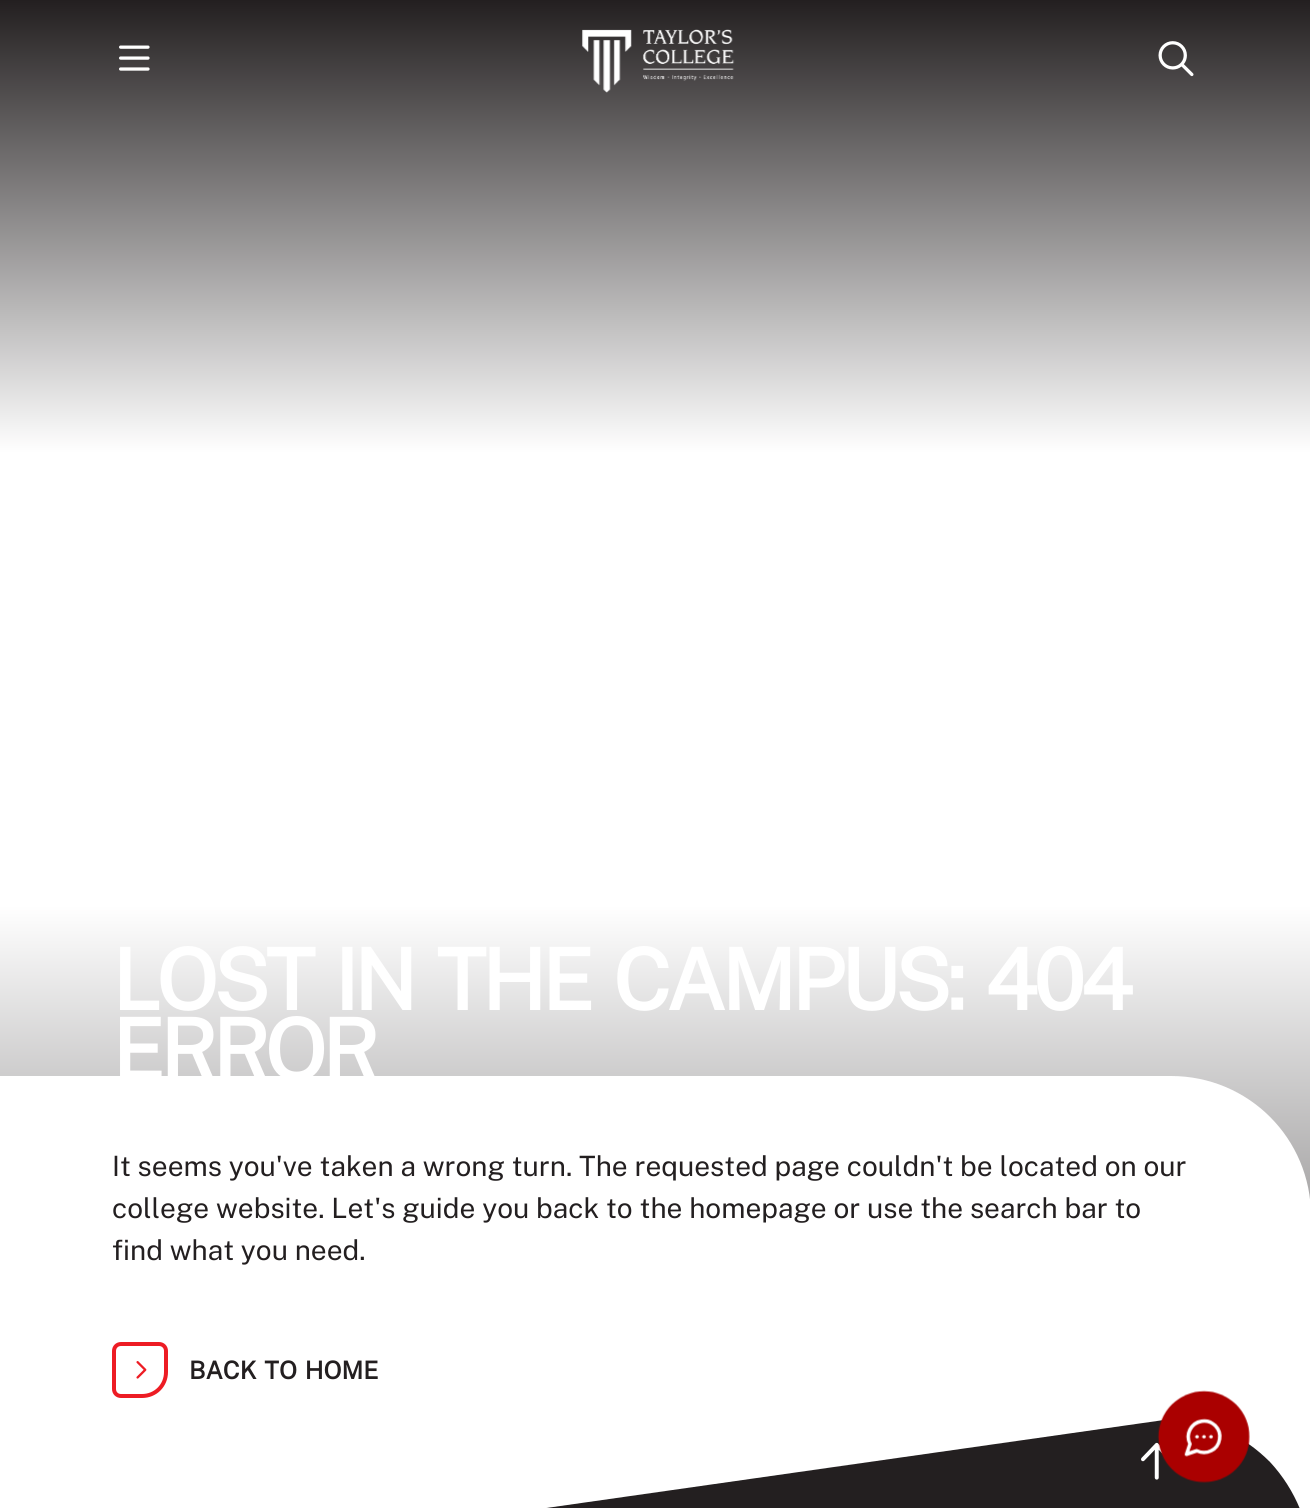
#include <cairo.h>
#include <math.h>
#include <stddef.h>


static void set_color(cairo_t *cr, unsigned color) {
    cairo_set_source_rgb(cr, (color >> 16) / 255.0, (color >> 8 & 255) / 255.0, (color & 255) / 255.0);
}

static void draw_text(cairo_t *cr, double x, double y, const char *s, const char *family, double size, int italic, int bold, unsigned color) {
    cairo_select_font_face(cr, family, italic ? CAIRO_FONT_SLANT_ITALIC : CAIRO_FONT_SLANT_NORMAL,
        bold ? CAIRO_FONT_WEIGHT_BOLD : CAIRO_FONT_WEIGHT_NORMAL);
    cairo_set_font_size(cr, size);
    set_color(cr, color);
    cairo_move_to(cr, x, y);
    cairo_show_text(cr, s);
}

static void draw_spaced(cairo_t *cr, double x, double y, const char *s, double letter, double word) {
    cairo_move_to(cr, x, y);
    while (*s) {
        char ch[5] = {0};
        int n = 0;
        do ch[n++] = *s++; while ((*s & 0xC0) == 0x80);
        cairo_show_text(cr, ch);
        cairo_rel_move_to(cr, letter + word * (*ch == ' '), 0);
    }
}

static void draw_image(cairo_t *cr, const char *path, double x, double y, double w, double h) {
    cairo_surface_t *image = cairo_image_surface_create_from_png(path);
    cairo_save(cr);
    cairo_set_source_surface(cr, image, x, y);
    cairo_rectangle(cr, x, y, w, h);
    cairo_fill(cr);
    cairo_restore(cr);
    cairo_surface_destroy(image);
}

int main(void) {
    cairo_surface_t *surface = cairo_image_surface_create(CAIRO_FORMAT_RGB24, 1310, 1508);
    cairo_t *cr = cairo_create(surface);
    cairo_font_options_t *options = cairo_font_options_create();
    cairo_font_options_set_hint_metrics(options, CAIRO_HINT_METRICS_OFF);
    cairo_font_options_set_hint_style(options, CAIRO_HINT_STYLE_NONE);
    cairo_set_font_options(cr, options);
    cairo_set_miter_limit(cr, 4);
    cairo_pattern_t *gradient;
    set_color(cr, 0xFFFFFF);
    cairo_paint(cr);
    gradient = cairo_pattern_create_linear(655, 0, 655, 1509);
    cairo_pattern_add_color_stop_rgba(gradient, 0, 0.137, 0.122, 0.125, 1);
    cairo_pattern_add_color_stop_rgba(gradient, 0.3, 1, 1, 1, 1);
    cairo_pattern_add_color_stop_rgba(gradient, 0.6, 1, 1, 1, 1);
    cairo_pattern_add_color_stop_rgba(gradient, 1, 0.31, 0.298, 0.302, 1);
    cairo_set_source(cr, gradient);
    cairo_pattern_destroy(gradient);
    cairo_rectangle(cr, 0, 0, 1310, 1200);
    cairo_fill(cr);
    draw_image(cr, "assets/img1.png", 119, 45, 31, 26);
    draw_image(cr, "assets/img2.png", 582, 29, 153, 64);
    draw_image(cr, "assets/img3.png", 1158, 41, 36, 36);
    cairo_select_font_face(cr, "Public Sans", CAIRO_FONT_SLANT_NORMAL, CAIRO_FONT_WEIGHT_BOLD);
    cairo_set_font_size(cr, 84);
    set_color(cr, 0xFFFFFF);
    draw_spaced(cr, 112, 1010, "LOST IN THE CAMPUS: 404", -4.4, 7.5);
    draw_spaced(cr, 112, 1080, "ERROR", -4.4, 0);
    cairo_new_path(cr);
    cairo_move_to(cr, 0, 1076);
    cairo_line_to(cr, 1171, 1076);
    cairo_curve_to(cr, 1248.5, 1076, 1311, 1138.5, 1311, 1216);
    cairo_line_to(cr, 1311, 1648);
    cairo_line_to(cr, 0, 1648);
    cairo_close_path(cr);
    cairo_fill(cr);
    draw_text(cr, 112, 1176, "It seems you've taken a wrong turn. The requested page couldn't be located on our", "Public Sans", 28, 0, 0, 0x231F20);
    draw_text(cr, 112, 1218, "college website. Let's guide you back to the homepage or use the search bar to", "Public Sans", 28, 0, 0, 0x231F20);
    draw_text(cr, 112, 1260, "find what you need.", "Public Sans", 28, 0, 0, 0x231F20);
    cairo_new_path(cr);
    cairo_move_to(cr, 121, 1344);
    cairo_line_to(cr, 159, 1344);
    cairo_curve_to(cr, 163, 1344, 166, 1347, 166, 1351);
    cairo_line_to(cr, 166, 1372);
    cairo_curve_to(cr, 166, 1385.5, 155.5, 1396, 142, 1396);
    cairo_line_to(cr, 121, 1396);
    cairo_curve_to(cr, 117, 1396, 114, 1393, 114, 1389);
    cairo_line_to(cr, 114, 1351);
    cairo_curve_to(cr, 114, 1347, 117, 1344, 121, 1344);
    cairo_close_path(cr);
    set_color(cr, 0xED1C24);
    cairo_set_line_width(cr, 4);
    cairo_stroke(cr);
    draw_image(cr, "assets/img4.png", 136, 1361, 11, 18);
    cairo_select_font_face(cr, "Public Sans", CAIRO_FONT_SLANT_NORMAL, CAIRO_FONT_WEIGHT_BOLD);
    cairo_set_font_size(cr, 24.5);
    set_color(cr, 0x231F20);
    draw_spaced(cr, 189, 1379, "BACK TO HOME", 0, 2);
    cairo_new_path(cr);
    cairo_move_to(cr, 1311, 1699);
    cairo_line_to(cr, 0, 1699);
    cairo_curve_to(cr, 3, 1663, 19, 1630, 45, 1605);
    cairo_curve_to(cr, 70, 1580, 104, 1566, 139, 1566);
    cairo_line_to(cr, 1171, 1419);
    cairo_curve_to(cr, 1190, 1419, 1208, 1423, 1225, 1431);
    cairo_curve_to(cr, 1242, 1438, 1257, 1449, 1270, 1462);
    cairo_curve_to(cr, 1283, 1476, 1293, 1492, 1300, 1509);
    cairo_curve_to(cr, 1307, 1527, 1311, 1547, 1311, 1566);
    cairo_close_path(cr);
    cairo_fill(cr);
    draw_image(cr, "assets/img6.png", 1141, 1442, 23, 38);
    draw_image(cr, "assets/img5.png", 1157, 1390, 93, 93);
    cairo_surface_write_to_png(surface, "output.png");
    cairo_font_options_destroy(options);
    cairo_destroy(cr);
    cairo_surface_destroy(surface);
    return 0;
}
